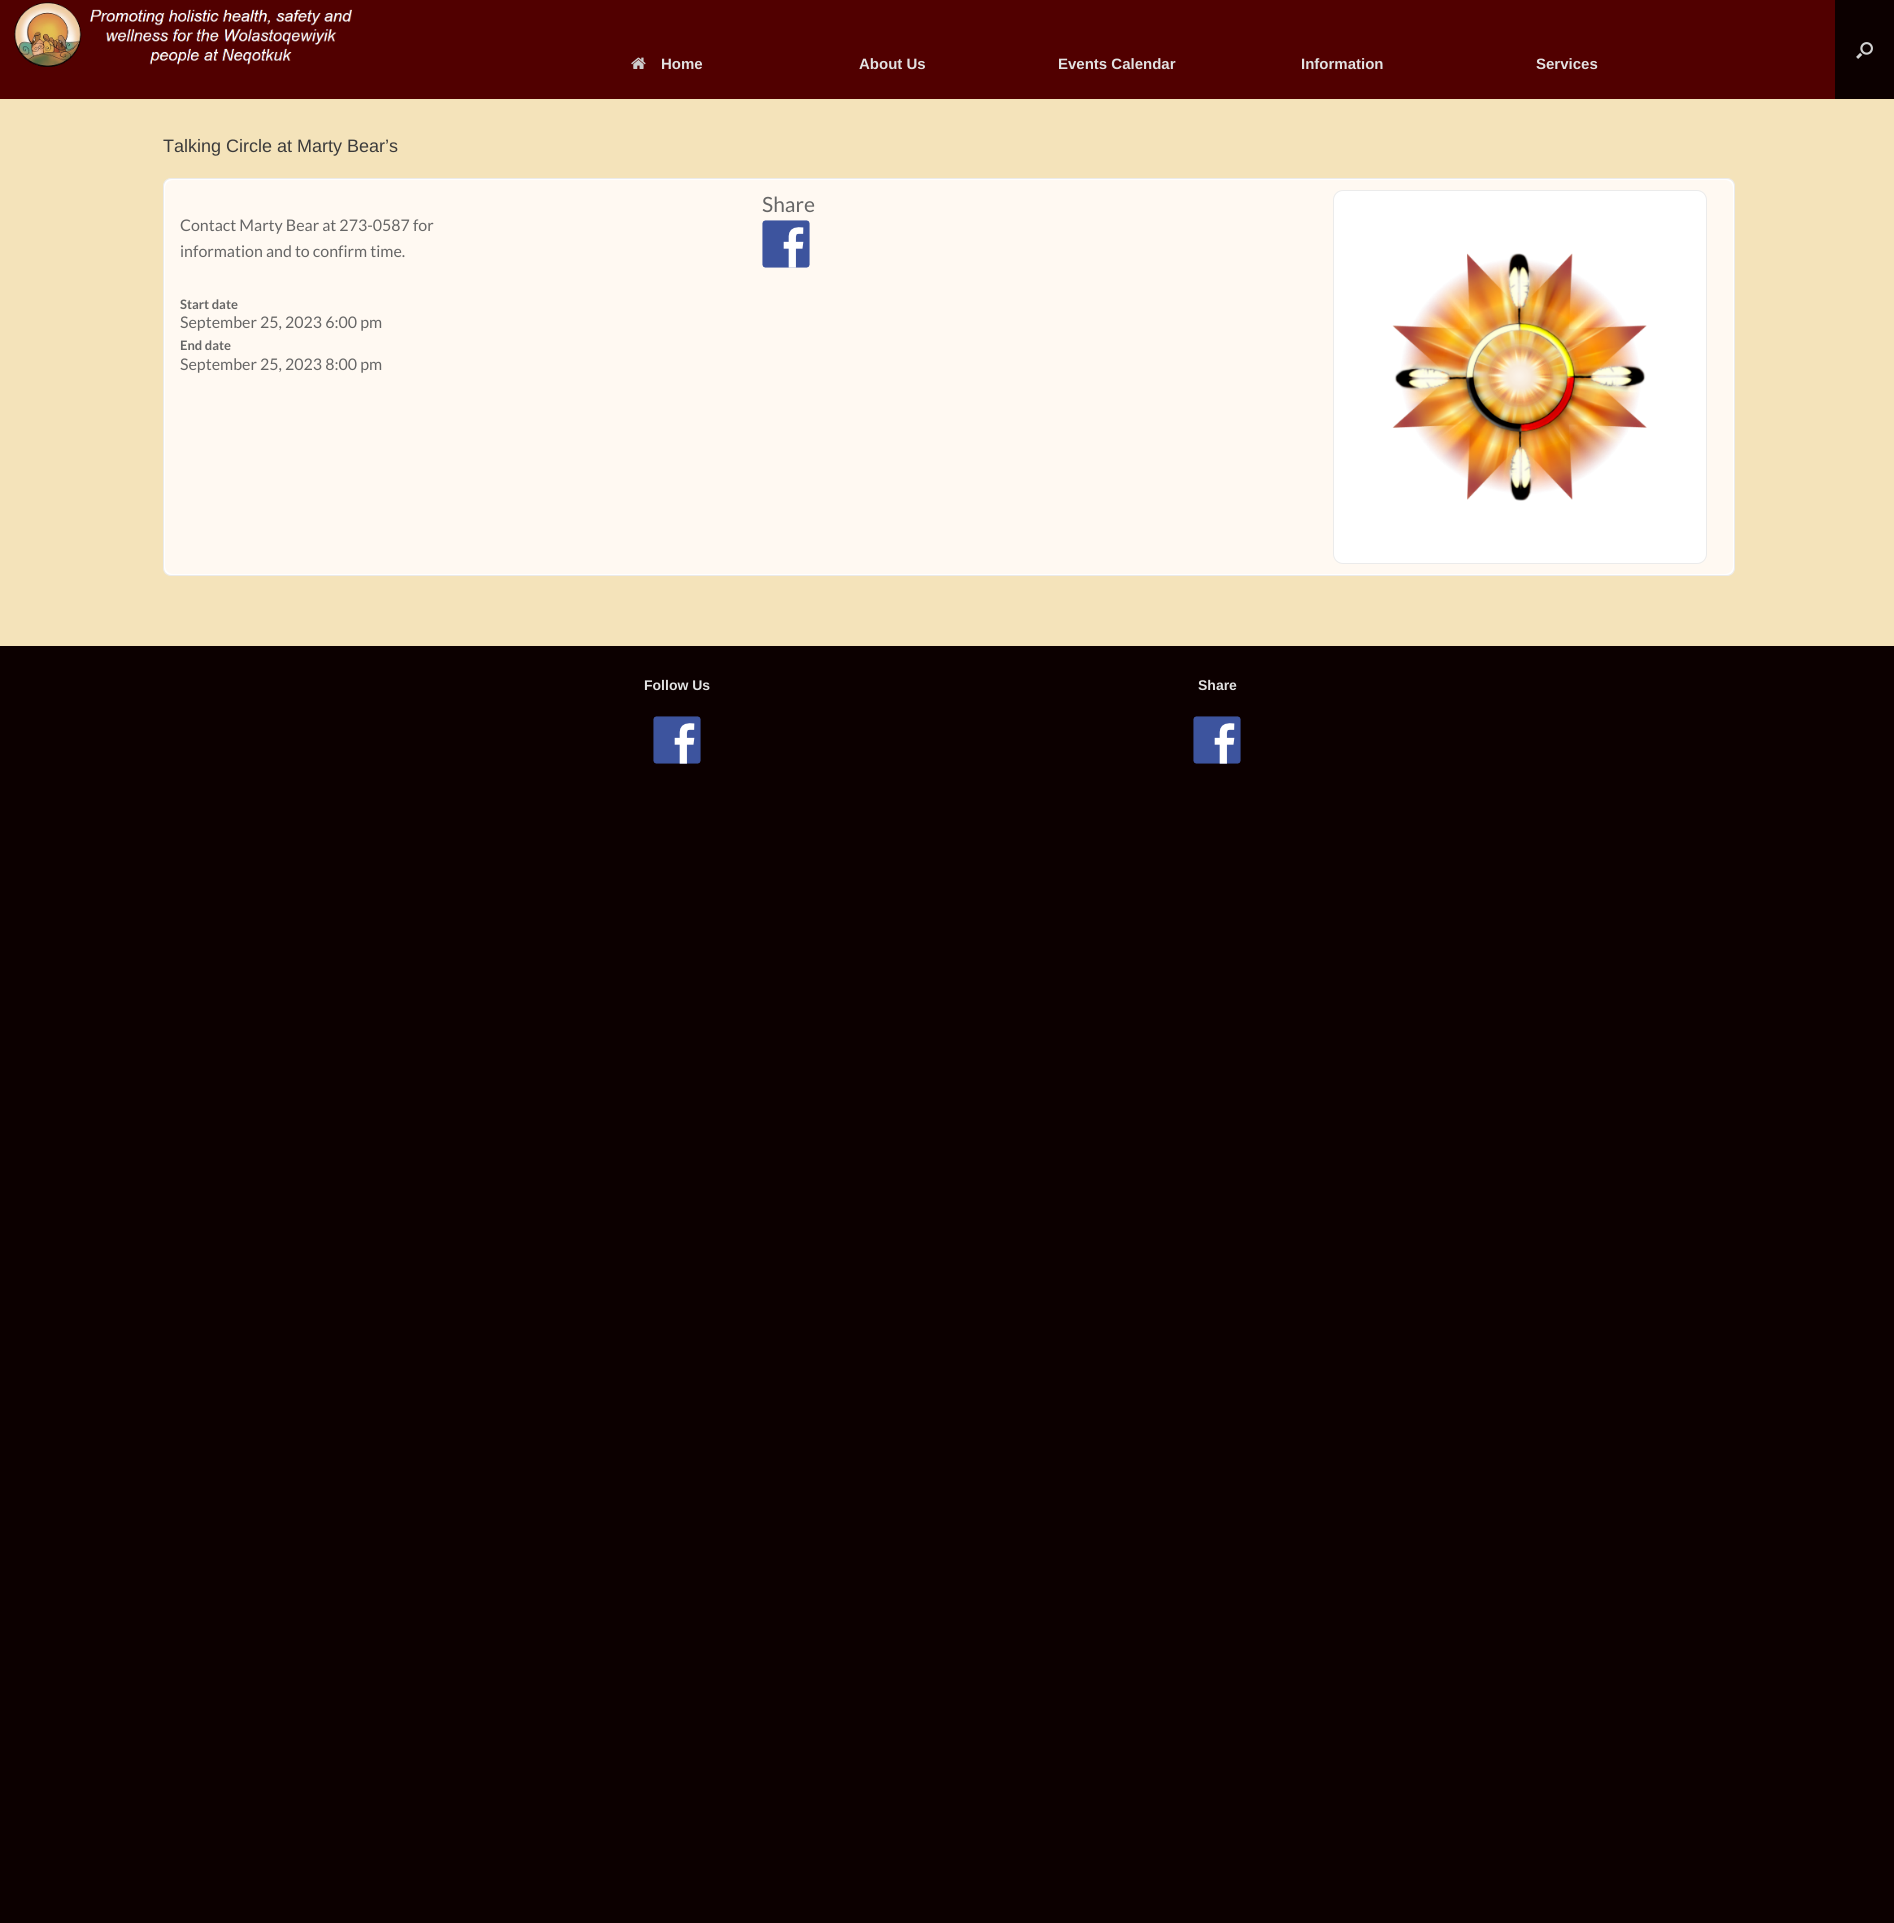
#include <cairo.h>
#include <math.h>
#include <stddef.h>


static void set_color(cairo_t *cr, unsigned color) {
    cairo_set_source_rgb(cr, (color >> 16) / 255.0, (color >> 8 & 255) / 255.0, (color & 255) / 255.0);
}

static void draw_text(cairo_t *cr, double x, double y, const char *s, const char *family, double size, int italic, int bold, unsigned color) {
    cairo_select_font_face(cr, family, italic ? CAIRO_FONT_SLANT_ITALIC : CAIRO_FONT_SLANT_NORMAL,
        bold ? CAIRO_FONT_WEIGHT_BOLD : CAIRO_FONT_WEIGHT_NORMAL);
    cairo_set_font_size(cr, size);
    set_color(cr, color);
    cairo_move_to(cr, x, y);
    cairo_show_text(cr, s);
}

static void fill_rect(cairo_t *cr, double x, double y, double w, double h, unsigned color) {
    set_color(cr, color);
    cairo_rectangle(cr, x, y, w, h);
    cairo_fill(cr);
}

static void rounded_rect(cairo_t *cr, double x, double y, double w, double h, double r) {
    cairo_new_sub_path(cr);
    cairo_arc(cr, x + w - r, y + h - r, r, 0, M_PI / 2);
    cairo_arc(cr, x + r, y + h - r, r, M_PI / 2, M_PI);
    cairo_arc(cr, x + r, y + r, r, M_PI, 1.5 * M_PI);
    cairo_arc(cr, x + w - r, y + r, r, 1.5 * M_PI, 2 * M_PI);
    cairo_close_path(cr);
}

static void draw_image(cairo_t *cr, const char *path, double x, double y, double w, double h) {
    cairo_surface_t *image = cairo_image_surface_create_from_png(path);
    cairo_save(cr);
    cairo_set_source_surface(cr, image, x, y);
    cairo_rectangle(cr, x, y, w, h);
    cairo_fill(cr);
    cairo_restore(cr);
    cairo_surface_destroy(image);
}

int main(void) {
    cairo_surface_t *surface = cairo_image_surface_create(CAIRO_FORMAT_RGB24, 1894, 1923);
    cairo_t *cr = cairo_create(surface);
    cairo_font_options_t *options = cairo_font_options_create();
    cairo_font_options_set_hint_metrics(options, CAIRO_HINT_METRICS_OFF);
    cairo_font_options_set_hint_style(options, CAIRO_HINT_STYLE_NONE);
    cairo_set_font_options(cr, options);
    cairo_set_miter_limit(cr, 4);
    set_color(cr, 0x0C0000);
    cairo_paint(cr);
    fill_rect(cr, 0, 0, 1835, 99, 0x510000);
    draw_image(cr, "assets/img1.png", 14, 2, 338, 65);
    draw_image(cr, "assets/img2.png", 1856, 42, 17, 17);
    draw_image(cr, "assets/img3.png", 631, 57, 15, 12);
    draw_text(cr, 661, 69, "Home", "Liberation Sans", 15, 0, 1, 0xE2E2E2);
    draw_text(cr, 859, 69, "About Us", "Liberation Sans", 15, 0, 1, 0xE2E2E2);
    draw_text(cr, 1058, 69, "Events Calendar", "Liberation Sans", 15, 0, 1, 0xE2E2E2);
    draw_text(cr, 1301, 69, "Information", "Liberation Sans", 15, 0, 1, 0xE2E2E2);
    draw_text(cr, 1536, 69, "Services", "Liberation Sans", 15, 0, 1, 0xE2E2E2);
    fill_rect(cr, 0, 99, 1894, 547, 0xF4E3BA);
    draw_text(cr, 163, 152, "Talking Circle at Marty Bear’s", "Liberation Sans", 18, 0, 0, 0x3B3B3B);
    set_color(cr, 0xFFFFFF);
    rounded_rect(cr, 163.5, 178.5, 1571, 397, 7.5);
    cairo_fill_preserve(cr);
    set_color(cr, 0xEBEBEB);
    cairo_set_line_width(cr, 1);
    cairo_stroke(cr);
    set_color(cr, 0xFFF9F2);
    rounded_rect(cr, 165, 180, 1568, 394, 8);
    cairo_fill(cr);
    draw_text(cr, 762, 212, "Share", "Lato", 21, 0, 0, 0x666666);
    draw_image(cr, "assets/img4.png", 762, 220, 48, 48);
    draw_text(cr, 180, 231, "Contact Marty Bear at 273-0587 for", "Lato", 16, 0, 0, 0x666666);
    draw_text(cr, 180, 257, "information and to confirm time.", "Lato", 16, 0, 0, 0x666666);
    draw_text(cr, 180, 309, "Start date", "Lato", 13, 0, 1, 0x666666);
    draw_text(cr, 180, 328, "September 25, 2023 6:00 pm", "Lato", 16, 0, 0, 0x666666);
    draw_text(cr, 180, 350, "End date", "Lato", 13, 0, 1, 0x666666);
    draw_text(cr, 180, 370, "September 25, 2023 8:00 pm", "Lato", 16, 0, 0, 0x666666);
    set_color(cr, 0xFFFFFF);
    rounded_rect(cr, 1333.5, 190.5, 373, 373, 9.5);
    cairo_fill_preserve(cr);
    set_color(cr, 0xEBEBEB);
    cairo_stroke(cr);
    draw_image(cr, "assets/img5.png", 1392, 253, 255, 248);
    draw_text(cr, 644, 690, "Follow Us", "Liberation Sans", 14, 0, 1, 0xE2E2E2);
    draw_image(cr, "assets/img6.png", 653, 716, 48, 48);
    draw_text(cr, 1198, 690, "Share", "Liberation Sans", 14, 0, 1, 0xE2E2E2);
    draw_image(cr, "assets/img6.png", 1193, 716, 48, 48);
    cairo_surface_write_to_png(surface, "output.png");
    cairo_font_options_destroy(options);
    cairo_destroy(cr);
    cairo_surface_destroy(surface);
    return 0;
}
